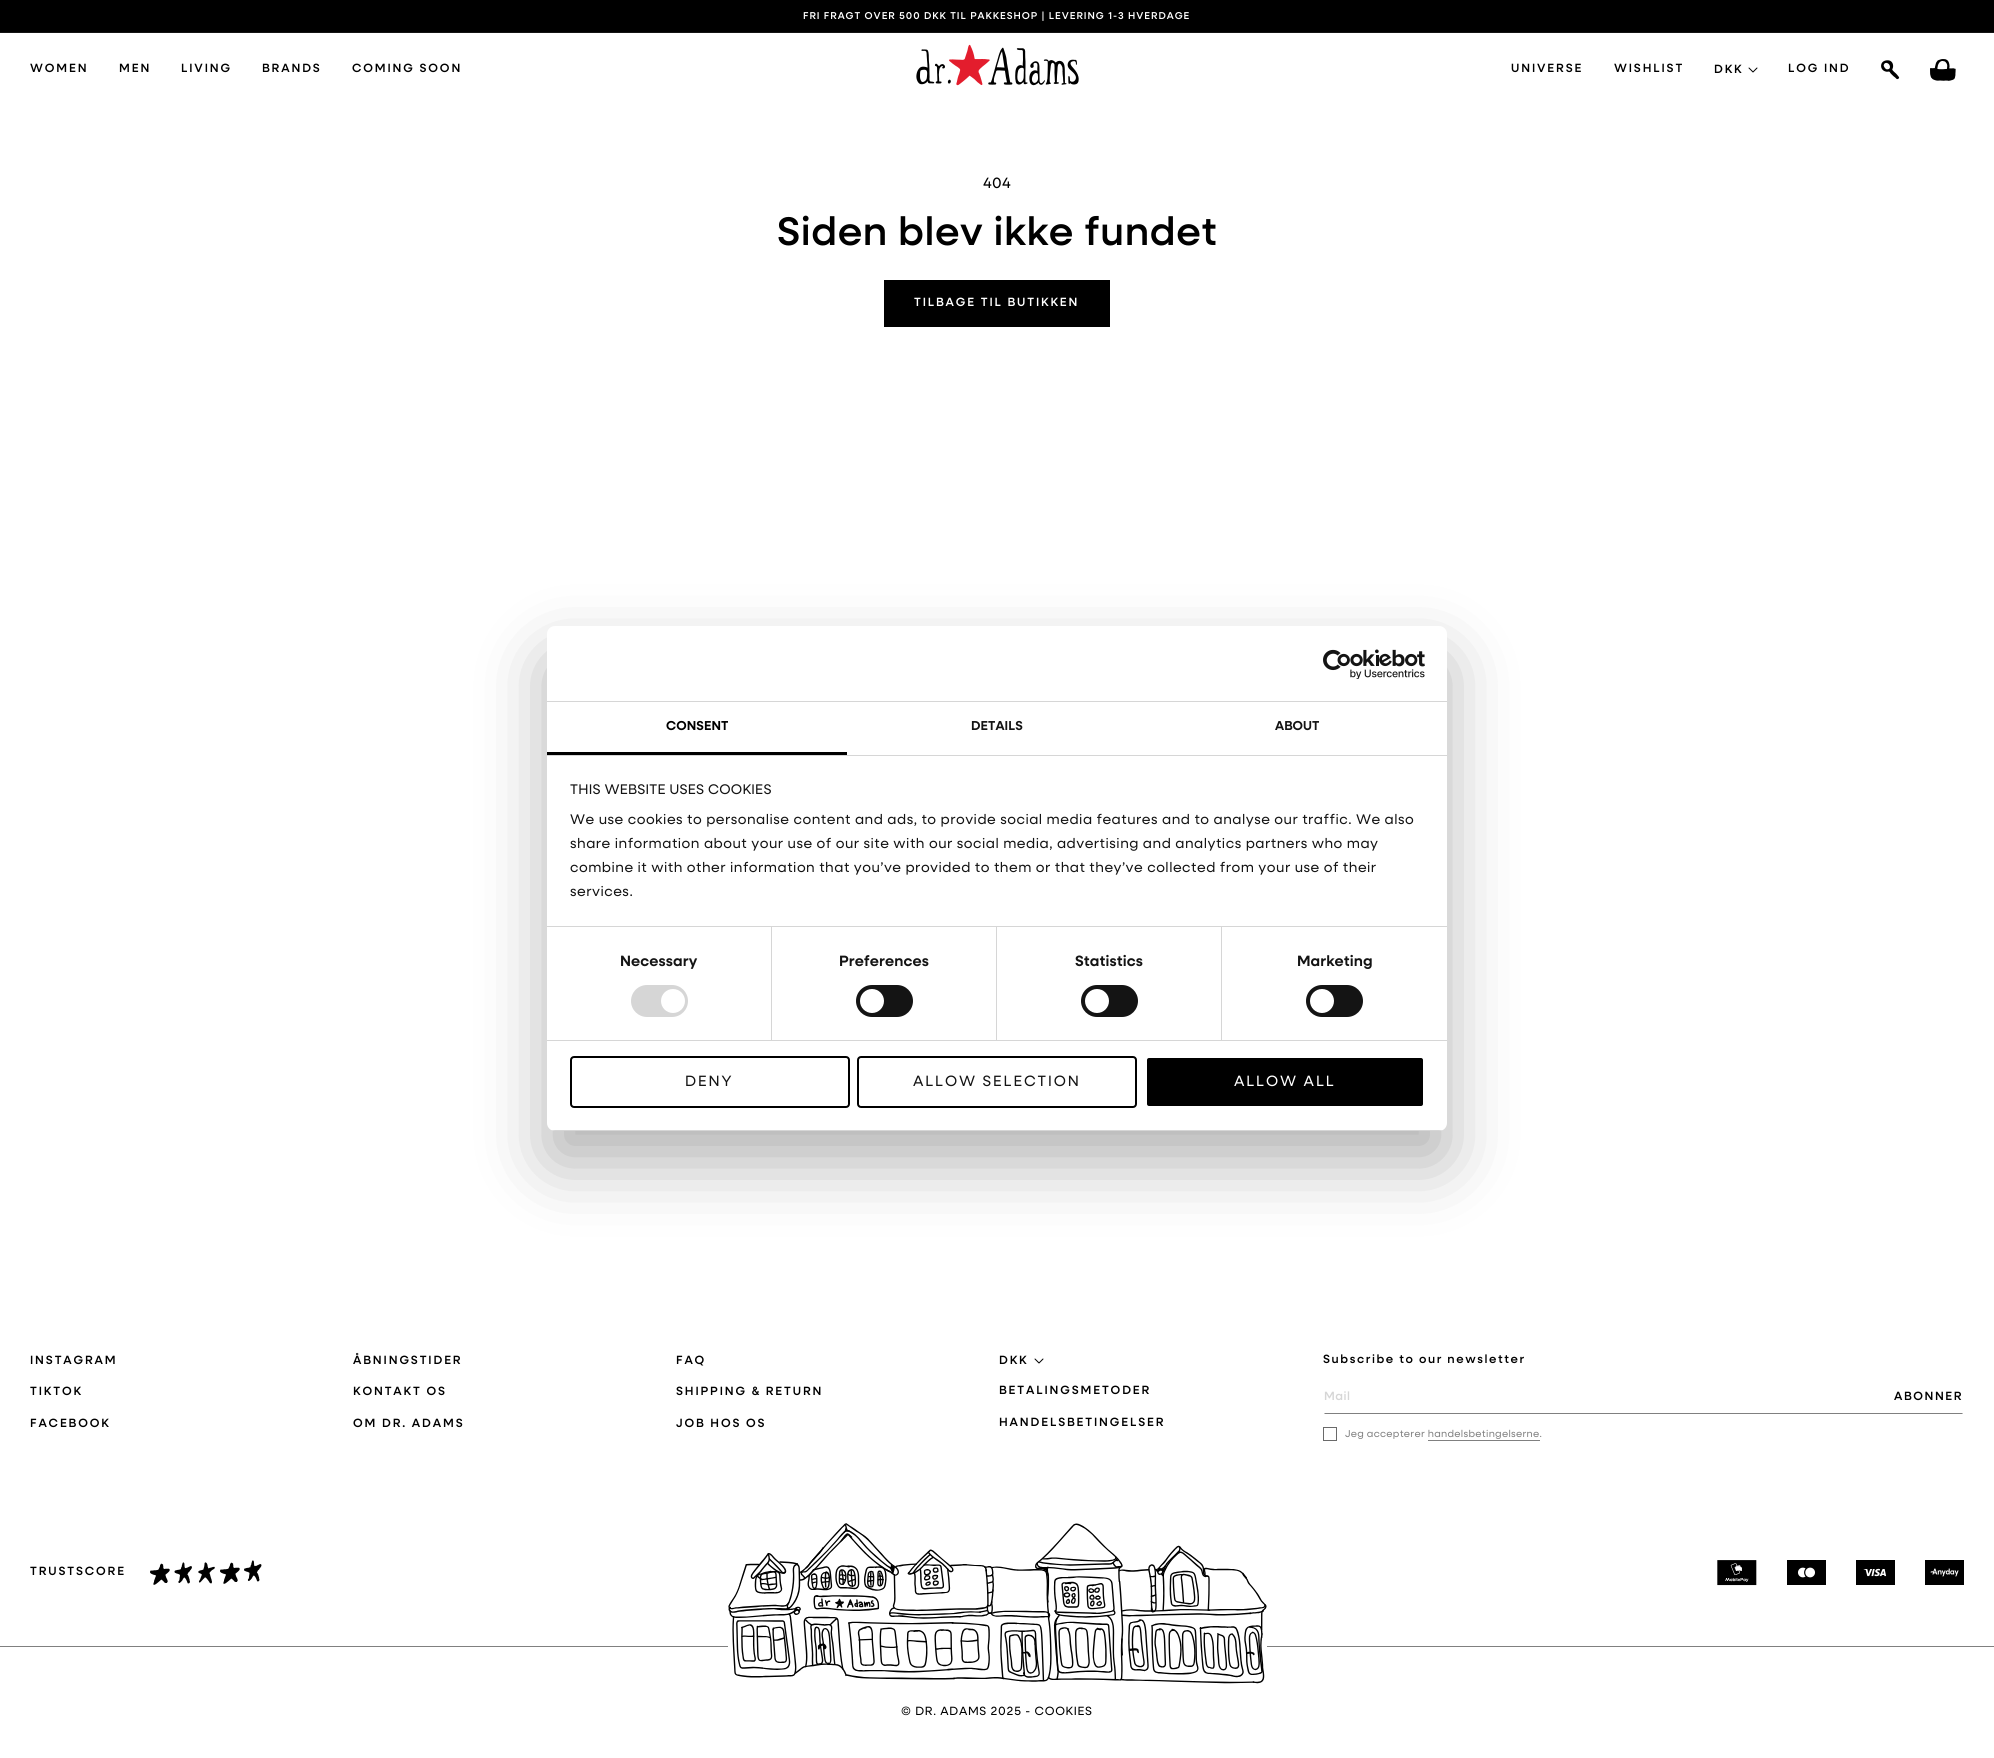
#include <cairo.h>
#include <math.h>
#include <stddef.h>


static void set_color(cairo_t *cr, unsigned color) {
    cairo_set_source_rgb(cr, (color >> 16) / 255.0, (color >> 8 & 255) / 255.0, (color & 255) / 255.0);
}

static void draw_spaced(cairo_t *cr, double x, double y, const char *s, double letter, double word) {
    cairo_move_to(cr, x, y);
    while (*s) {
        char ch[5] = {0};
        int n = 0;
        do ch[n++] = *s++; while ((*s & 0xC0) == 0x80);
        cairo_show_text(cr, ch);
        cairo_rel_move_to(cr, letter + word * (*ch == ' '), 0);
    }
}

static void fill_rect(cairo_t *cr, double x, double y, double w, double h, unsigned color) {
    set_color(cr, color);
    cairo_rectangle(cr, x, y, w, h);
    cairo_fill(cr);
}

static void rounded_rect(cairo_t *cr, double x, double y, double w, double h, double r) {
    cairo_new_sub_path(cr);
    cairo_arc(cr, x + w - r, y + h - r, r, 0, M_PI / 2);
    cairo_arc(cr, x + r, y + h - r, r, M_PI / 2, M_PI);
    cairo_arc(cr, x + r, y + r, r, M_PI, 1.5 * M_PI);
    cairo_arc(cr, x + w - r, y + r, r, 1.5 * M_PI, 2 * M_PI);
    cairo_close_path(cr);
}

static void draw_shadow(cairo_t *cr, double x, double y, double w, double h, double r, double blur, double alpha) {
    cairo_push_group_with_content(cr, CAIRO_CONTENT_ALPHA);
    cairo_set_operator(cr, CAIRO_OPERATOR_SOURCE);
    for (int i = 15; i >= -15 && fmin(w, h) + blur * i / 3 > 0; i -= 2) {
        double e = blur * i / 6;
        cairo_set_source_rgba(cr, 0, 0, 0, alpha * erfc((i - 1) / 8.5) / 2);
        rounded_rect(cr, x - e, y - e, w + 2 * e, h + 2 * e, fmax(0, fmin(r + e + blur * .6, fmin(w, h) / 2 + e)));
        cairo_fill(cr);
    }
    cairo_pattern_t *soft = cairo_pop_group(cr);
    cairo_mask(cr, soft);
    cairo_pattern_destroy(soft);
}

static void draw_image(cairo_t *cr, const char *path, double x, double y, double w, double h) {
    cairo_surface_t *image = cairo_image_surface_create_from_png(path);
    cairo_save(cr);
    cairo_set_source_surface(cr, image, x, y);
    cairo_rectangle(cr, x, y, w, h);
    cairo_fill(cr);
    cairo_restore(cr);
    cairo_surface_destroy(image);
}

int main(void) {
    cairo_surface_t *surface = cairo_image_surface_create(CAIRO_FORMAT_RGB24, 1994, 1758);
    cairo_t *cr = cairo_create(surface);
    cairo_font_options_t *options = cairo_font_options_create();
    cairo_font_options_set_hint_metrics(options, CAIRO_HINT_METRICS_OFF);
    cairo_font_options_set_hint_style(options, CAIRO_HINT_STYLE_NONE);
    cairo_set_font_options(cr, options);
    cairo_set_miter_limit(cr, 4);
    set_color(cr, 0xFFFFFF);
    cairo_paint(cr);
    fill_rect(cr, 0, 0, 1994, 32, 0x000000);
    fill_rect(cr, 0, 32, 1994, 1, 0x141414);
    cairo_select_font_face(cr, "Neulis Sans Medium", CAIRO_FONT_SLANT_NORMAL, CAIRO_FONT_WEIGHT_NORMAL);
    cairo_set_font_size(cr, 10);
    set_color(cr, 0xFFFFFF);
    draw_spaced(cr, 803, 19, "FRI FRAGT OVER 500 DKK TIL PAKKESHOP | LEVERING 1-3 HVERDAGE", 1, 0);
    cairo_set_font_size(cr, 12);
    set_color(cr, 0x000000);
    draw_spaced(cr, 30, 72, "WOMEN", 1.9, 0);
    draw_spaced(cr, 119, 72, "MEN", 1.9, 0);
    draw_spaced(cr, 181, 72, "LIVING", 1.9, 0);
    draw_spaced(cr, 262, 72, "BRANDS", 1.9, 0);
    draw_spaced(cr, 352, 72, "COMING SOON", 1.9, 0);
    draw_image(cr, "assets/img1.png", 916, 44, 163, 42);
    draw_spaced(cr, 1511, 72, "UNIVERSE", 1.9, 0);
    draw_spaced(cr, 1614, 72, "WISHLIST", 1.9, 0);
    draw_spaced(cr, 1714, 73, "DKK", 1.9, 0);
    draw_image(cr, "assets/img2.png", 1748, 67, 10, 6);
    draw_spaced(cr, 1788, 72, "LOG IND", 1.9, 0);
    draw_image(cr, "assets/img3.png", 1881, 60, 19, 20);
    draw_image(cr, "assets/img4.png", 1930, 59, 26, 22);
    cairo_select_font_face(cr, "Neulis Sans", CAIRO_FONT_SLANT_NORMAL, CAIRO_FONT_WEIGHT_NORMAL);
    cairo_set_font_size(cr, 15);
    draw_spaced(cr, 983, 188, "404", 0.3, 0);
    cairo_select_font_face(cr, "Neulis Sans Medium", CAIRO_FONT_SLANT_NORMAL, CAIRO_FONT_WEIGHT_NORMAL);
    cairo_set_font_size(cr, 40);
    draw_spaced(cr, 777, 245, "Siden blev ikke fundet", 0.6, 0);
    fill_rect(cr, 884, 280, 226, 47, 0x000000);
    cairo_set_font_size(cr, 12);
    set_color(cr, 0xFFFFFF);
    draw_spaced(cr, 914, 306, "TILBAGE TIL BUTIKKEN", 1.9, 0);
    set_color(cr, 0x000000);
    draw_shadow(cr, 547, 658, 900, 505, 8, 34, 0.3);
    set_color(cr, 0xFFFFFF);
    rounded_rect(cr, 547, 626, 900, 505, 8);
    cairo_fill(cr);
    fill_rect(cr, 547, 701, 900, 1, 0xD6D6D6);
    draw_image(cr, "assets/img5.png", 1323, 649, 102, 30);
    fill_rect(cr, 547, 755, 900, 1, 0xD6D6D6);
    fill_rect(cr, 547, 752, 300, 3, 0x000000);
    cairo_select_font_face(cr, "Neulis Sans SemiBold", CAIRO_FONT_SLANT_NORMAL, CAIRO_FONT_WEIGHT_NORMAL);
    cairo_set_font_size(cr, 13);
    draw_spaced(cr, 666, 730, "CONSENT", 0.1, 0);
    set_color(cr, 0x141414);
    draw_spaced(cr, 971, 730, "DETAILS", 0.1, 0);
    draw_spaced(cr, 1275, 730, "ABOUT", 0.1, 0);
    fill_rect(cr, 547, 926, 900, 1, 0xD6D6D6);
    cairo_select_font_face(cr, "Neulis Sans", CAIRO_FONT_SLANT_NORMAL, CAIRO_FONT_WEIGHT_NORMAL);
    cairo_set_font_size(cr, 14);
    set_color(cr, 0x141414);
    draw_spaced(cr, 570, 794, "THIS WEBSITE USES COOKIES", 0.25, 0);
    draw_spaced(cr, 570, 824, "We use cookies to personalise content and ads, to provide social media features and to analyse our traffic. We also", 0.5, 0);
    draw_spaced(cr, 570, 848, "share information about your use of our site with our social media, advertising and analytics partners who may", 0.5, 0);
    draw_spaced(cr, 570, 872, "combine it with other information that you’ve provided to them or that they’ve collected from your use of their", 0.5, 0);
    draw_spaced(cr, 570, 896, "services.", 0.5, 0);
    fill_rect(cr, 547, 1040, 900, 1, 0xD6D6D6);
    fill_rect(cr, 771, 927, 1, 113, 0xD6D6D6);
    cairo_select_font_face(cr, "Neulis Sans SemiBold", CAIRO_FONT_SLANT_NORMAL, CAIRO_FONT_WEIGHT_NORMAL);
    cairo_set_font_size(cr, 15);
    set_color(cr, 0x141414);
    draw_spaced(cr, 620, 966, "Necessary", 0.1, 0);
    set_color(cr, 0xD6D6D6);
    rounded_rect(cr, 631, 985, 57, 32, 16);
    cairo_fill(cr);
    set_color(cr, 0xFFFFFF);
    cairo_arc(cr, 673, 1001, 12, 0, 2 * M_PI);
    cairo_fill(cr);
    fill_rect(cr, 996, 927, 1, 113, 0xD6D6D6);
    set_color(cr, 0x141414);
    draw_spaced(cr, 839, 966, "Preferences", 0.1, 0);
    rounded_rect(cr, 856, 985, 57, 32, 16);
    cairo_fill(cr);
    set_color(cr, 0xFFFFFF);
    cairo_arc(cr, 872, 1001, 12, 0, 2 * M_PI);
    cairo_fill(cr);
    fill_rect(cr, 1221, 927, 1, 113, 0xD6D6D6);
    set_color(cr, 0x141414);
    draw_spaced(cr, 1075, 966, "Statistics", 0.1, 0);
    rounded_rect(cr, 1081, 985, 57, 32, 16);
    cairo_fill(cr);
    set_color(cr, 0xFFFFFF);
    cairo_arc(cr, 1097, 1001, 12, 0, 2 * M_PI);
    cairo_fill(cr);
    set_color(cr, 0x141414);
    draw_spaced(cr, 1297, 966, "Marketing", 0.1, 0);
    rounded_rect(cr, 1306, 985, 57, 32, 16);
    cairo_fill(cr);
    set_color(cr, 0xFFFFFF);
    cairo_arc(cr, 1322, 1001, 12, 0, 2 * M_PI);
    cairo_fill(cr);
    cairo_save(cr);
    rounded_rect(cr, 547, 626, 900, 505, 8);
    cairo_clip(cr);
    fill_rect(cr, 547, 1130, 900, 1, 0xD6D6D6);
    cairo_restore(cr);
    rounded_rect(cr, 571, 1057, 278, 50, 3);
    set_color(cr, 0x000000);
    cairo_stroke(cr);
    cairo_select_font_face(cr, "Neulis Sans", CAIRO_FONT_SLANT_NORMAL, CAIRO_FONT_WEIGHT_NORMAL);
    set_color(cr, 0x141414);
    draw_spaced(cr, 685, 1086, "DENY", 1.9, 0);
    rounded_rect(cr, 858, 1057, 278, 50, 3);
    set_color(cr, 0x000000);
    cairo_stroke(cr);
    set_color(cr, 0x141414);
    draw_spaced(cr, 913, 1086, "ALLOW SELECTION", 1.9, 0);
    set_color(cr, 0x000000);
    rounded_rect(cr, 1146, 1057, 278, 50, 3);
    cairo_fill_preserve(cr);
    set_color(cr, 0xFFFFFF);
    cairo_stroke(cr);
    draw_spaced(cr, 1234, 1086, "ALLOW ALL", 1.9, 0);
    cairo_select_font_face(cr, "Neulis Sans Medium", CAIRO_FONT_SLANT_NORMAL, CAIRO_FONT_WEIGHT_NORMAL);
    cairo_set_font_size(cr, 12);
    set_color(cr, 0x000000);
    draw_spaced(cr, 30, 1364, "INSTAGRAM", 1.9, 0);
    draw_spaced(cr, 30, 1395, "TIKTOK", 1.9, 0);
    draw_spaced(cr, 30, 1427, "FACEBOOK", 1.9, 0);
    draw_spaced(cr, 353, 1364, "ÅBNINGSTIDER", 1.9, 0);
    draw_spaced(cr, 353, 1395, "KONTAKT OS", 1.9, 0);
    draw_spaced(cr, 353, 1427, "OM DR. ADAMS", 1.9, 0);
    draw_spaced(cr, 676, 1364, "FAQ", 1.9, 0);
    draw_spaced(cr, 676, 1395, "SHIPPING & RETURN", 1.9, 0);
    draw_spaced(cr, 676, 1427, "JOB HOS OS", 1.9, 0);
    draw_spaced(cr, 999, 1364, "DKK", 1.9, 0);
    draw_image(cr, "assets/img2.png", 1034, 1358, 10, 6);
    draw_spaced(cr, 999, 1394, "BETALINGSMETODER", 1.9, 0);
    draw_spaced(cr, 999, 1426, "HANDELSBETINGELSER", 1.9, 0);
    draw_spaced(cr, 1323, 1363, "Subscribe to our newsletter", 1.6, 0);
    set_color(cr, 0xD6D6D6);
    draw_spaced(cr, 1324, 1400, "Mail", 0.5, 0);
    set_color(cr, 0x000000);
    draw_spaced(cr, 1894, 1400, "ABONNER", 1.6, 0);
    set_color(cr, 0x808080);
    cairo_new_path(cr);
    cairo_move_to(cr, 1963, 1414);
    cairo_line_to(cr, 1324, 1414);
    cairo_line_to(cr, 1325, 1413);
    cairo_line_to(cr, 1962, 1413);
    cairo_close_path(cr);
    cairo_fill(cr);
    cairo_rectangle(cr, 1323.5, 1427.5, 13, 13);
    set_color(cr, 0x6A6A6A);
    cairo_set_line_width(cr, 1);
    cairo_stroke(cr);
    cairo_select_font_face(cr, "Neulis Sans", CAIRO_FONT_SLANT_NORMAL, CAIRO_FONT_WEIGHT_NORMAL);
    cairo_set_font_size(cr, 10);
    set_color(cr, 0x808080);
    draw_spaced(cr, 1345, 1437, "Jeg accepterer handelsbetingelserne.", 0.3, 0);
    fill_rect(cr, 1428, 1440, 112, 1, 0x808080);
    cairo_select_font_face(cr, "Neulis Sans Medium", CAIRO_FONT_SLANT_NORMAL, CAIRO_FONT_WEIGHT_NORMAL);
    cairo_set_font_size(cr, 12);
    set_color(cr, 0x000000);
    draw_spaced(cr, 30, 1575, "TRUSTSCORE", 1.9, 0);
    draw_image(cr, "assets/img6.png", 150, 1560, 112, 25);
    draw_image(cr, "assets/img7.png", 1717, 1560, 40, 26);
    draw_image(cr, "assets/img8.png", 1787, 1560, 39, 25);
    draw_image(cr, "assets/img9.png", 1856, 1560, 39, 25);
    draw_image(cr, "assets/img10.png", 1925, 1560, 39, 25);
    fill_rect(cr, 0, 1646, 1994, 1, 0x808080);
    fill_rect(cr, 728, 1646, 539, 1, 0xFFFFFF);
    draw_image(cr, "assets/img11.png", 728, 1523, 539, 161);
    cairo_select_font_face(cr, "Neulis Sans", CAIRO_FONT_SLANT_NORMAL, CAIRO_FONT_WEIGHT_NORMAL);
    set_color(cr, 0x000000);
    draw_spaced(cr, 901, 1715, "© DR. ADAMS 2025 - COOKIES", 0.7, 0);
    cairo_surface_write_to_png(surface, "output.png");
    cairo_font_options_destroy(options);
    cairo_destroy(cr);
    cairo_surface_destroy(surface);
    return 0;
}
